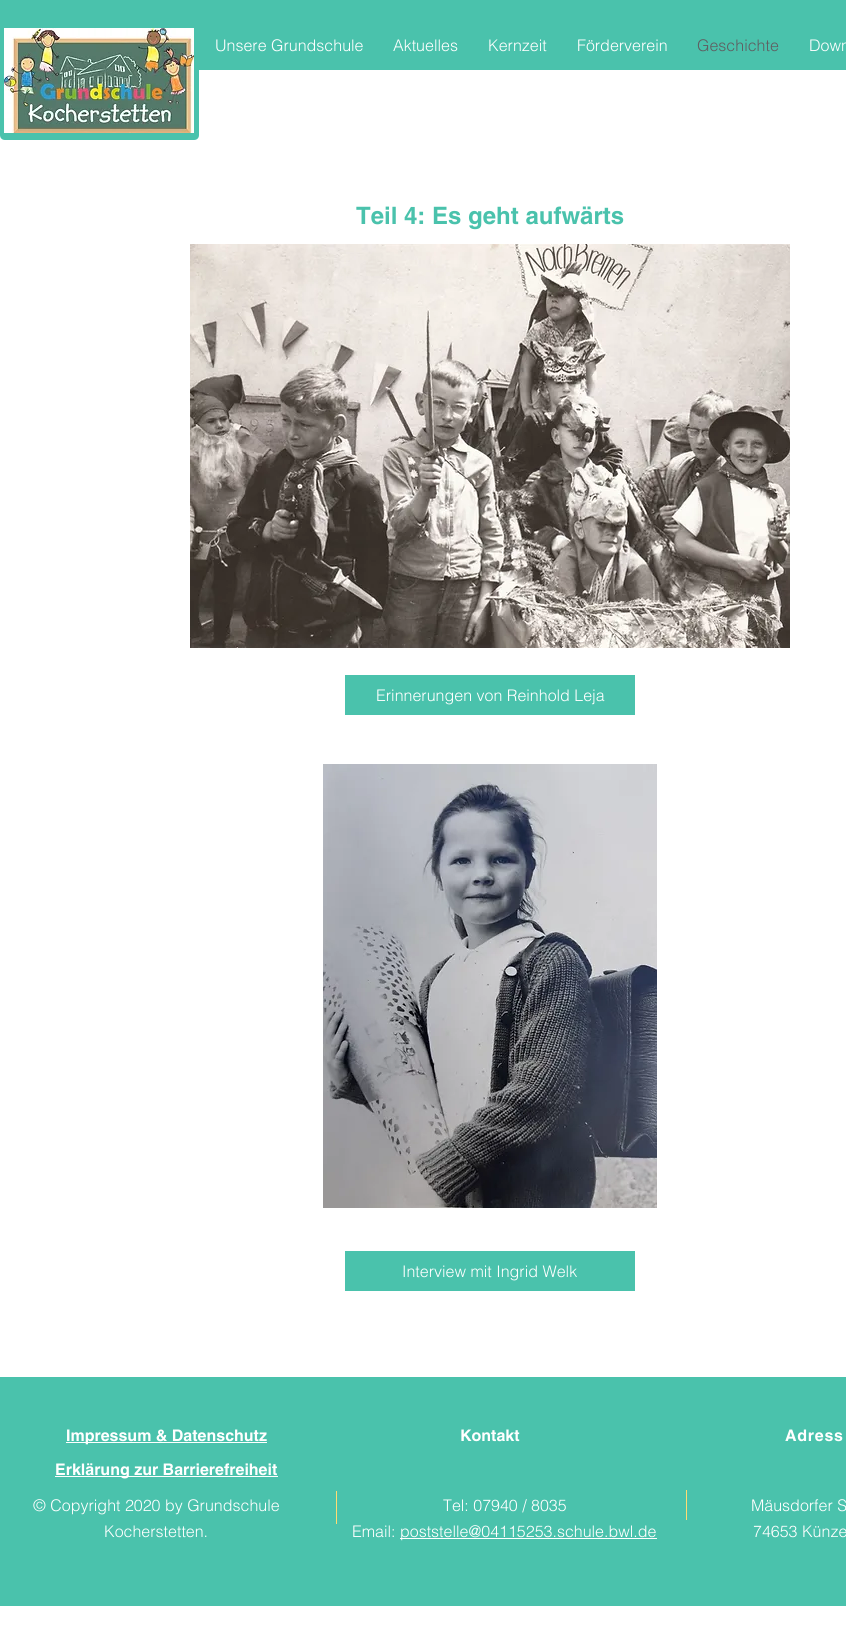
#include <cairo.h>
#include <math.h>
#include <stddef.h>


static void set_color(cairo_t *cr, unsigned color) {
    cairo_set_source_rgb(cr, (color >> 16) / 255.0, (color >> 8 & 255) / 255.0, (color & 255) / 255.0);
}

static void draw_text(cairo_t *cr, double x, double y, const char *s, const char *family, double size, int italic, int bold, unsigned color) {
    cairo_select_font_face(cr, family, italic ? CAIRO_FONT_SLANT_ITALIC : CAIRO_FONT_SLANT_NORMAL,
        bold ? CAIRO_FONT_WEIGHT_BOLD : CAIRO_FONT_WEIGHT_NORMAL);
    cairo_set_font_size(cr, size);
    set_color(cr, color);
    cairo_move_to(cr, x, y);
    cairo_show_text(cr, s);
}

static void draw_spaced(cairo_t *cr, double x, double y, const char *s, double letter, double word) {
    cairo_move_to(cr, x, y);
    while (*s) {
        char ch[5] = {0};
        int n = 0;
        do ch[n++] = *s++; while ((*s & 0xC0) == 0x80);
        cairo_show_text(cr, ch);
        cairo_rel_move_to(cr, letter + word * (*ch == ' '), 0);
    }
}

static void fill_rect(cairo_t *cr, double x, double y, double w, double h, unsigned color) {
    set_color(cr, color);
    cairo_rectangle(cr, x, y, w, h);
    cairo_fill(cr);
}

static void draw_image(cairo_t *cr, const char *path, double x, double y, double w, double h) {
    cairo_surface_t *image = cairo_image_surface_create_from_png(path);
    cairo_save(cr);
    cairo_set_source_surface(cr, image, x, y);
    cairo_rectangle(cr, x, y, w, h);
    cairo_fill(cr);
    cairo_restore(cr);
    cairo_surface_destroy(image);
}

int main(void) {
    cairo_surface_t *surface = cairo_image_surface_create(CAIRO_FORMAT_RGB24, 846, 1643);
    cairo_t *cr = cairo_create(surface);
    cairo_font_options_t *options = cairo_font_options_create();
    cairo_font_options_set_hint_metrics(options, CAIRO_HINT_METRICS_OFF);
    cairo_font_options_set_hint_style(options, CAIRO_HINT_STYLE_NONE);
    cairo_set_font_options(cr, options);
    cairo_set_miter_limit(cr, 4);
    set_color(cr, 0xFFFFFF);
    cairo_paint(cr);
    set_color(cr, 0x4AC2AC);
    cairo_new_path(cr);
    cairo_move_to(cr, 0, 0);
    cairo_line_to(cr, 199, 0);
    cairo_line_to(cr, 199, 135);
    cairo_curve_to(cr, 199, 138, 197, 140, 194, 140);
    cairo_line_to(cr, 5, 140);
    cairo_curve_to(cr, 2, 140, 0, 138, 0, 135);
    cairo_close_path(cr);
    cairo_fill(cr);
    draw_image(cr, "assets/img1.png", 4, 28, 190, 105);
    fill_rect(cr, 199, 0, 647, 70, 0x4AC2AC);
    draw_text(cr, 215, 51, "Unsere Grundschule", "helvetica Light", 16, 0, 0, 0xFFFFFF);
    draw_text(cr, 393, 51, "Aktuelles", "helvetica Light", 16, 0, 0, 0xFFFFFF);
    draw_text(cr, 488, 51, "Kernzeit", "helvetica Light", 16, 0, 0, 0xFFFFFF);
    draw_text(cr, 577, 51, "Förderverein", "helvetica Light", 16, 0, 0, 0xFFFFFF);
    draw_text(cr, 697, 51, "Geschichte", "helvetica Light", 16, 0, 0, 0x5F5E61);
    draw_text(cr, 809, 51, "Down", "helvetica Light", 16, 0, 0, 0xFFFFFF);
    draw_text(cr, 356, 224, "Teil 4: Es geht aufwärts", "helvetica", 24, 0, 1, 0x4AC2AC);
    draw_image(cr, "assets/img2.png", 190, 244, 600, 404);
    fill_rect(cr, 345, 675, 290, 40, 0x4AC2AC);
    draw_text(cr, 376, 701, "Erinnerungen von Reinhold Leja", "helvetica Light", 16, 0, 0, 0xFFFFFF);
    draw_image(cr, "assets/img3.png", 323, 764, 334, 444);
    fill_rect(cr, 345, 1251, 290, 40, 0x4AC2AC);
    draw_text(cr, 402, 1277, "Interview mit Ingrid Welk", "helvetica Light", 16, 0, 0, 0xFFFFFF);
    fill_rect(cr, 0, 1377, 846, 229, 0x4AC2AC);
    fill_rect(cr, 66, 1442, 201, 1, 0xFFFFFF);
    draw_text(cr, 66, 1441, "Impressum & Datenschutz", "helvetica", 16, 0, 1, 0xFFFFFF);
    draw_text(cr, 460, 1441, "Kontakt", "helvetica", 16, 0, 1, 0xFFFFFF);
    draw_spaced(cr, 785, 1441, "Adress", 0.75, 0);
    fill_rect(cr, 55, 1476, 223, 1, 0xFFFFFF);
    draw_text(cr, 55, 1475, "Erklärung zur Barrierefreiheit", "helvetica", 16, 0, 1, 0xFFFFFF);
    draw_text(cr, 33, 1511, "© Copyright 2020 by Grundschule", "helvetica Light", 16, 0, 0, 0xFFFFFF);
    draw_text(cr, 104, 1537, "Kocherstetten.", "helvetica Light", 16, 0, 0, 0xFFFFFF);
    fill_rect(cr, 336, 1491, 1, 33, 0xFFDC73);
    draw_text(cr, 443, 1511, "Tel: 07940 / 8035", "helvetica Light", 16, 0, 0, 0xFFFFFF);
    draw_text(cr, 352, 1537, "Email:", "helvetica Light", 16, 0, 0, 0xFFFFFF);
    fill_rect(cr, 400, 1538, 257, 1, 0xFFFFFF);
    draw_text(cr, 400, 1537, "poststelle@04115253.schule.bwl.de", "helvetica Light", 16, 0, 0, 0xFFFFFF);
    fill_rect(cr, 686, 1490, 1, 30, 0xFFDC73);
    draw_text(cr, 751, 1511, "Mäusdorfer S", "helvetica Light", 16, 0, 0, 0xFFFFFF);
    draw_text(cr, 753, 1537, "74653 Künze", "helvetica Light", 16, 0, 0, 0xFFFFFF);
    cairo_surface_write_to_png(surface, "output.png");
    cairo_font_options_destroy(options);
    cairo_destroy(cr);
    cairo_surface_destroy(surface);
    return 0;
}
